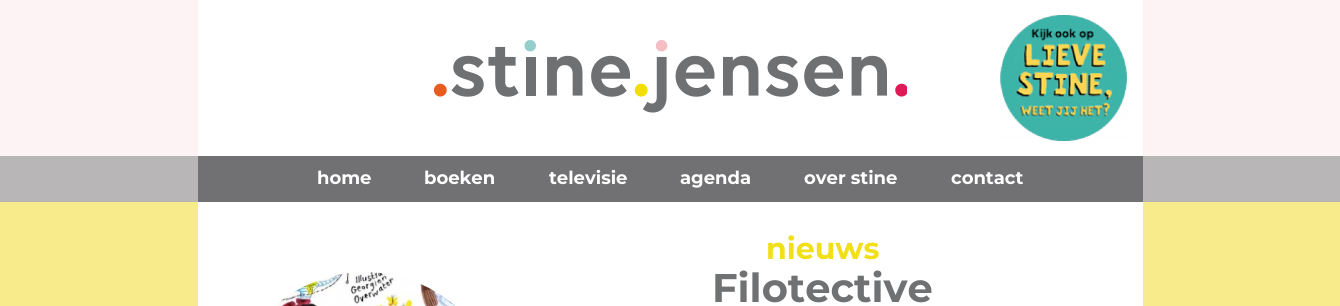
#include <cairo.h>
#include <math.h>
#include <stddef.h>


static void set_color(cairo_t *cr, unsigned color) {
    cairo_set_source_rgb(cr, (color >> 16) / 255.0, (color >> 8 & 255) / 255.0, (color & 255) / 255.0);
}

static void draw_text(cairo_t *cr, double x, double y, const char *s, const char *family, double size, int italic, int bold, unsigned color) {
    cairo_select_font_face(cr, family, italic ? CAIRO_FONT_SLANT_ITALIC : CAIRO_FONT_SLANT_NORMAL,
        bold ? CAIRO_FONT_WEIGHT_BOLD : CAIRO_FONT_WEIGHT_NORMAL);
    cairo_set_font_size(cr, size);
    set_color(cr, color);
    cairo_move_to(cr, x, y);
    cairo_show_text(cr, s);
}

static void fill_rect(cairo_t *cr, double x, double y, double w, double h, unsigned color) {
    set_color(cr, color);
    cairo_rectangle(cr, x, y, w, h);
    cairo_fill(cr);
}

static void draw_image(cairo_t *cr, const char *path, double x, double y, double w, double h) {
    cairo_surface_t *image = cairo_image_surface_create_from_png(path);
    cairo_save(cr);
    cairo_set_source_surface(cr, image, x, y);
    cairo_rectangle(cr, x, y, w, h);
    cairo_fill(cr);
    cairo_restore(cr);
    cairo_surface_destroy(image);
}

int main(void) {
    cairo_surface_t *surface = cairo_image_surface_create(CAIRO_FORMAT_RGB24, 1340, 306);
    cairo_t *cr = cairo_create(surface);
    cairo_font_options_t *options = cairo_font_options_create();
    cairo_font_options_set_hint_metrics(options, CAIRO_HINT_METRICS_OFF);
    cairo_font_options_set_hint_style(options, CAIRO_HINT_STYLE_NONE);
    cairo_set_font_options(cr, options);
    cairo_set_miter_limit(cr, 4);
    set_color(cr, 0xFDF3F4);
    cairo_paint(cr);
    fill_rect(cr, 198, 0, 945, 156, 0xFFFFFF);
    draw_image(cr, "assets/img1.png", 433, 40, 474, 73);
    draw_image(cr, "assets/img2.png", 1000, 15, 127, 126);
    fill_rect(cr, 0, 156, 1340, 46, 0xB8B6B7);
    fill_rect(cr, 198, 156, 945, 46, 0x717173);
    draw_text(cr, 317, 184, "home", "Montserrat Thin", 18, 0, 0, 0xFFFFFF);
    draw_text(cr, 424, 184, "boeken", "Montserrat Thin", 18, 0, 0, 0xFFFFFF);
    draw_text(cr, 549, 184, "televisie", "Montserrat Thin", 18, 0, 0, 0xFFFFFF);
    draw_text(cr, 680, 184, "agenda", "Montserrat Thin", 18, 0, 0, 0xFFFFFF);
    draw_text(cr, 804, 184, "over stine", "Montserrat Thin", 18, 0, 0, 0xFFFFFF);
    draw_text(cr, 951, 184, "contact", "Montserrat Thin", 18, 0, 0, 0xFFFFFF);
    fill_rect(cr, 0, 202, 1340, 104, 0xF8EB8B);
    fill_rect(cr, 198, 202, 945, 104, 0xFFFFFF);
    draw_image(cr, "assets/img3.png", 277, 272, 178, 34);
    draw_text(cr, 766, 259, "nieuws", "Montserrat Thin", 30, 0, 0, 0xF1DF17);
    draw_text(cr, 712, 302, "Filotective", "Montserrat Thin", 40, 0, 0, 0x707173);
    cairo_surface_write_to_png(surface, "output.png");
    cairo_font_options_destroy(options);
    cairo_destroy(cr);
    cairo_surface_destroy(surface);
    return 0;
}
